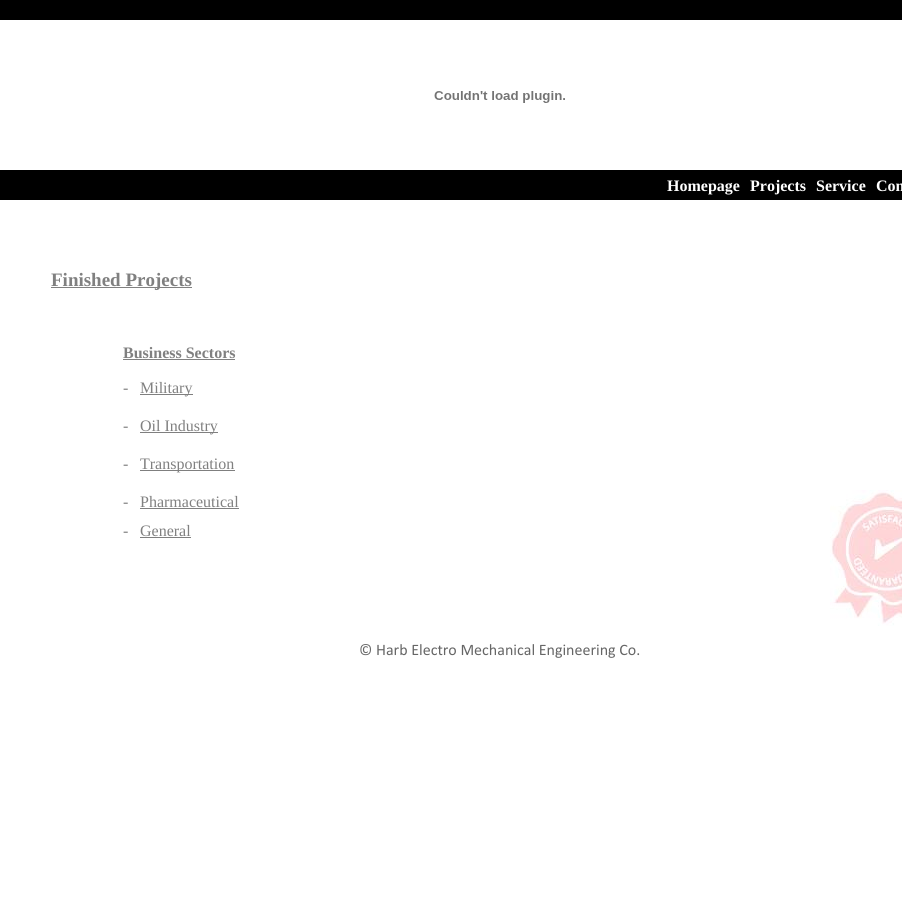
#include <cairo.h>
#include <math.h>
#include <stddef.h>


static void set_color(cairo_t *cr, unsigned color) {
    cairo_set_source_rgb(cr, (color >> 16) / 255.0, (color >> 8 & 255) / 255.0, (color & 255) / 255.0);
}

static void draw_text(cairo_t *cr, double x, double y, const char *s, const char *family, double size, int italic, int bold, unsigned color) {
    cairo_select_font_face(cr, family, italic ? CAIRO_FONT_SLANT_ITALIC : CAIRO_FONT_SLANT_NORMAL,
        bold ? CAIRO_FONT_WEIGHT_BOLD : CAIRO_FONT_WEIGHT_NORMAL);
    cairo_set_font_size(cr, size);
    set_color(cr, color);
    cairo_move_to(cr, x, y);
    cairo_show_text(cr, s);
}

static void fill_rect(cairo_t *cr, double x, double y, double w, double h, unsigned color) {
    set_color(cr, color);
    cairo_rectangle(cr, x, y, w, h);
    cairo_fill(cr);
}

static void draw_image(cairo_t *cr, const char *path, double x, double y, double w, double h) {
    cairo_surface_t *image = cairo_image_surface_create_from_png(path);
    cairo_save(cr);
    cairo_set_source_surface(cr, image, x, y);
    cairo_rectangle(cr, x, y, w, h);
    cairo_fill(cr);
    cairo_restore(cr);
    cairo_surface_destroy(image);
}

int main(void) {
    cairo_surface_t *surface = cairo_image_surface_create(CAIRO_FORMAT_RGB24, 902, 904);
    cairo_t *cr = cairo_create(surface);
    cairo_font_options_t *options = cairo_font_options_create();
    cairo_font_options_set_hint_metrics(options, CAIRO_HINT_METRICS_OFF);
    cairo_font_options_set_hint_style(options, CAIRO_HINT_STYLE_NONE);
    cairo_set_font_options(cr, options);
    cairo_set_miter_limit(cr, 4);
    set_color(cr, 0xFFFFFF);
    cairo_paint(cr);
    fill_rect(cr, 0, 0, 902, 20, 0x000000);
    draw_image(cr, "assets/img1.png", 434, 91, 131, 12);
    fill_rect(cr, 0, 170, 902, 30, 0x000000);
    draw_text(cr, 667, 191, "Homepage", "Liberation Serif", 16, 0, 1, 0xFFFFFF);
    draw_text(cr, 750, 191, "Projects", "Liberation Serif", 16, 0, 1, 0xFFFFFF);
    draw_text(cr, 816, 191, "Service", "Liberation Serif", 16, 0, 1, 0xFFFFFF);
    draw_text(cr, 876, 191, "Con", "Liberation Serif", 16, 0, 1, 0xFFFFFF);
    fill_rect(cr, 51, 287, 141, 1, 0x808080);
    draw_text(cr, 51, 286, "Finished Projects", "Liberation Serif", 19, 0, 1, 0x808080);
    draw_text(cr, 123, 358, "Business Sectors", "Liberation Serif", 16, 0, 1, 0x808080);
    fill_rect(cr, 123, 359, 112, 1, 0x808080);
    draw_text(cr, 123, 393, "-", "Liberation Serif", 16, 0, 0, 0x808080);
    fill_rect(cr, 140, 394, 53, 1, 0x7F7F7F);
    draw_text(cr, 140, 393, "Military", "Liberation Serif", 16, 0, 0, 0x808080);
    draw_text(cr, 123, 431, "-", "Liberation Serif", 16, 0, 0, 0x808080);
    fill_rect(cr, 140, 432, 78, 1, 0x7F7F7F);
    draw_text(cr, 140, 431, "Oil Industry", "Liberation Serif", 16, 0, 0, 0x808080);
    draw_text(cr, 123, 469, "-", "Liberation Serif", 16, 0, 0, 0x808080);
    fill_rect(cr, 140, 470, 95, 1, 0x7F7F7F);
    draw_text(cr, 140, 469, "Transportation", "Liberation Serif", 16, 0, 0, 0x808080);
    draw_text(cr, 123, 507, "-", "Liberation Serif", 16, 0, 0, 0x808080);
    draw_text(cr, 140, 507, "Pharmaceutical", "Liberation Serif", 16, 0, 0, 0x808080);
    fill_rect(cr, 140, 508, 99, 1, 0x7F7F7F);
    draw_text(cr, 123, 536, "-", "Liberation Serif", 16, 0, 0, 0x808080);
    draw_text(cr, 140, 536, "General", "Liberation Serif", 16, 0, 0, 0x808080);
    fill_rect(cr, 140, 537, 51, 1, 0x7F7F7F);
    draw_image(cr, "assets/img2.png", 830, 490, 72, 136);
    draw_text(cr, 359, 655, "© Harb Electro Mechanical Engineering Co.", "Calibri", 16, 0, 0, 0x666666);
    cairo_surface_write_to_png(surface, "output.png");
    cairo_font_options_destroy(options);
    cairo_destroy(cr);
    cairo_surface_destroy(surface);
    return 0;
}
